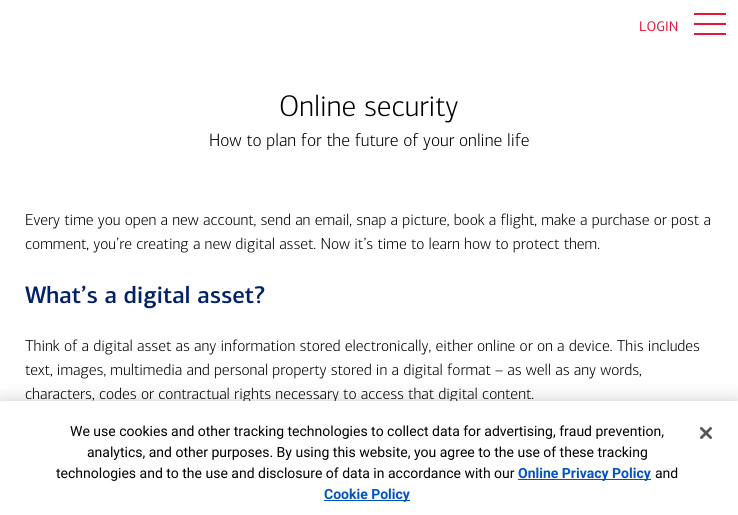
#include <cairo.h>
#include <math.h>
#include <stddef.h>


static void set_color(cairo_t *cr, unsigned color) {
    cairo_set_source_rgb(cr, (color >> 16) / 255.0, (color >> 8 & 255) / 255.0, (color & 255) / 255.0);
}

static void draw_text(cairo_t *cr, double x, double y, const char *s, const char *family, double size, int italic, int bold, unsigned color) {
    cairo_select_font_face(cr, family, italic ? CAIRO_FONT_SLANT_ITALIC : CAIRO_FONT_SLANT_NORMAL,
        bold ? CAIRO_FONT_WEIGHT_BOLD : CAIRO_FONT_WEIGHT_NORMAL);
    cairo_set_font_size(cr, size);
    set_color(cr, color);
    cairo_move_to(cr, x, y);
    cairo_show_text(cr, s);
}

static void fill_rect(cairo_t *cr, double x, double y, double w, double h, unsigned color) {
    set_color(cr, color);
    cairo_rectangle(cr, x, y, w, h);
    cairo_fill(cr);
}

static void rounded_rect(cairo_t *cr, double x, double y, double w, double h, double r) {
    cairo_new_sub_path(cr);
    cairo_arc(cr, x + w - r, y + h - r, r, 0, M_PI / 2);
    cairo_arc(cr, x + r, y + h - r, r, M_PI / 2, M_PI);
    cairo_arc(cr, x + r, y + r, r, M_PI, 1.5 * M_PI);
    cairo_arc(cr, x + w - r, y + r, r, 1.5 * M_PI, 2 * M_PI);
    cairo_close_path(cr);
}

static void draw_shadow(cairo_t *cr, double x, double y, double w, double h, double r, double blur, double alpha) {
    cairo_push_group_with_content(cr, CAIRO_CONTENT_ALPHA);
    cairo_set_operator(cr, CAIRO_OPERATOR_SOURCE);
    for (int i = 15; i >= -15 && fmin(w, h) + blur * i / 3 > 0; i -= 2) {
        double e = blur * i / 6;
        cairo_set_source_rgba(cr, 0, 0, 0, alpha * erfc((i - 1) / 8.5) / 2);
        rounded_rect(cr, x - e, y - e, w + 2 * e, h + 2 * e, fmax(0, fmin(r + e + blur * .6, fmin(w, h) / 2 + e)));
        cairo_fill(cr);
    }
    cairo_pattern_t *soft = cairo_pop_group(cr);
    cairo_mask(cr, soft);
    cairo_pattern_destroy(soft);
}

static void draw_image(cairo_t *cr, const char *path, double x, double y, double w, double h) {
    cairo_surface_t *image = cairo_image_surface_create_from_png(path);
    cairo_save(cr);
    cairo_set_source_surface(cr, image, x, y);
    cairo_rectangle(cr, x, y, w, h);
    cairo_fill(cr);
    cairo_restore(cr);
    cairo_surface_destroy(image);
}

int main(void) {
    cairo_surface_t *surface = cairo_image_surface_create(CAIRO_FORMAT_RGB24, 738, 515);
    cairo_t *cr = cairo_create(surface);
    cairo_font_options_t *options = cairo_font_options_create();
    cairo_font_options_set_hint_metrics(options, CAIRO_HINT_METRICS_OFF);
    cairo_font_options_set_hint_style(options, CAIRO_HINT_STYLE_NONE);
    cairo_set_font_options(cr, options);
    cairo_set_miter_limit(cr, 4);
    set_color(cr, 0xFFFFFF);
    cairo_paint(cr);
    draw_text(cr, 639, 31, "LOGIN", "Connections", 14, 0, 0, 0xE31837);
    fill_rect(cr, 694, 13, 32, 2, 0xE31837);
    fill_rect(cr, 694, 23, 32, 2, 0xE31837);
    fill_rect(cr, 694, 33, 32, 2, 0xE31837);
    draw_text(cr, 279, 116, "Online security", "Connections Light", 30, 0, 0, 0x000000);
    draw_text(cr, 209, 146, "How to plan for the future of your online life", "Connections Light", 18, 0, 0, 0x000000);
    draw_text(cr, 25, 225, "Every time you open a new account, send an email, snap a picture, book a flight, make a purchase or post a", "Connections Light", 16, 0, 0, 0x000000);
    draw_text(cr, 25, 249, "comment, you’re creating a new digital asset. Now it’s time to learn how to protect them.", "Connections Light", 16, 0, 0, 0x000000);
    draw_text(cr, 25, 303, "What’s a digital asset?", "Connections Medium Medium", 24, 0, 0, 0x012169);
    draw_text(cr, 25, 351, "Think of a digital asset as any information stored electronically, either online or on a device. This includes", "Connections Light", 16, 0, 0, 0x000000);
    draw_text(cr, 25, 375, "text, images, multimedia and personal property stored in a digital format – as well as any words,", "Connections Light", 16, 0, 0, 0x000000);
    draw_text(cr, 25, 399, "characters, codes or contractual rights necessary to access that digital content.", "Connections Light", 16, 0, 0, 0x000000);
    set_color(cr, 0x000000);
    draw_shadow(cr, 0, 401, 738, 114, 0, 9, 0.2);
    fill_rect(cr, 0, 401, 738, 114, 0xFFFFFF);
    draw_text(cr, 70, 436, "We use cookies and other tracking technologies to collect data for advertising, fraud prevention,", "Roboto", 14, 0, 0, 0x000000);
    draw_text(cr, 87, 457, "analytics, and other purposes. By using this website, you agree to the use of these tracking", "Roboto", 14, 0, 0, 0x000000);
    draw_text(cr, 56, 478, "technologies and to the use and disclosure of data in accordance with our", "Roboto", 14, 0, 0, 0x000000);
    fill_rect(cr, 518, 479, 133, 1, 0x0053C2);
    draw_text(cr, 518, 478, "Online Privacy Policy", "Roboto", 14, 0, 1, 0x0053C2);
    draw_text(cr, 655, 478, "and", "Roboto", 14, 0, 0, 0x000000);
    fill_rect(cr, 324, 500, 86, 1, 0x0053C2);
    draw_text(cr, 324, 499, "Cookie Policy", "Roboto", 14, 0, 1, 0x0053C2);
    draw_image(cr, "assets/img1.png", 700, 427, 12, 12);
    cairo_surface_write_to_png(surface, "output.png");
    cairo_font_options_destroy(options);
    cairo_destroy(cr);
    cairo_surface_destroy(surface);
    return 0;
}
